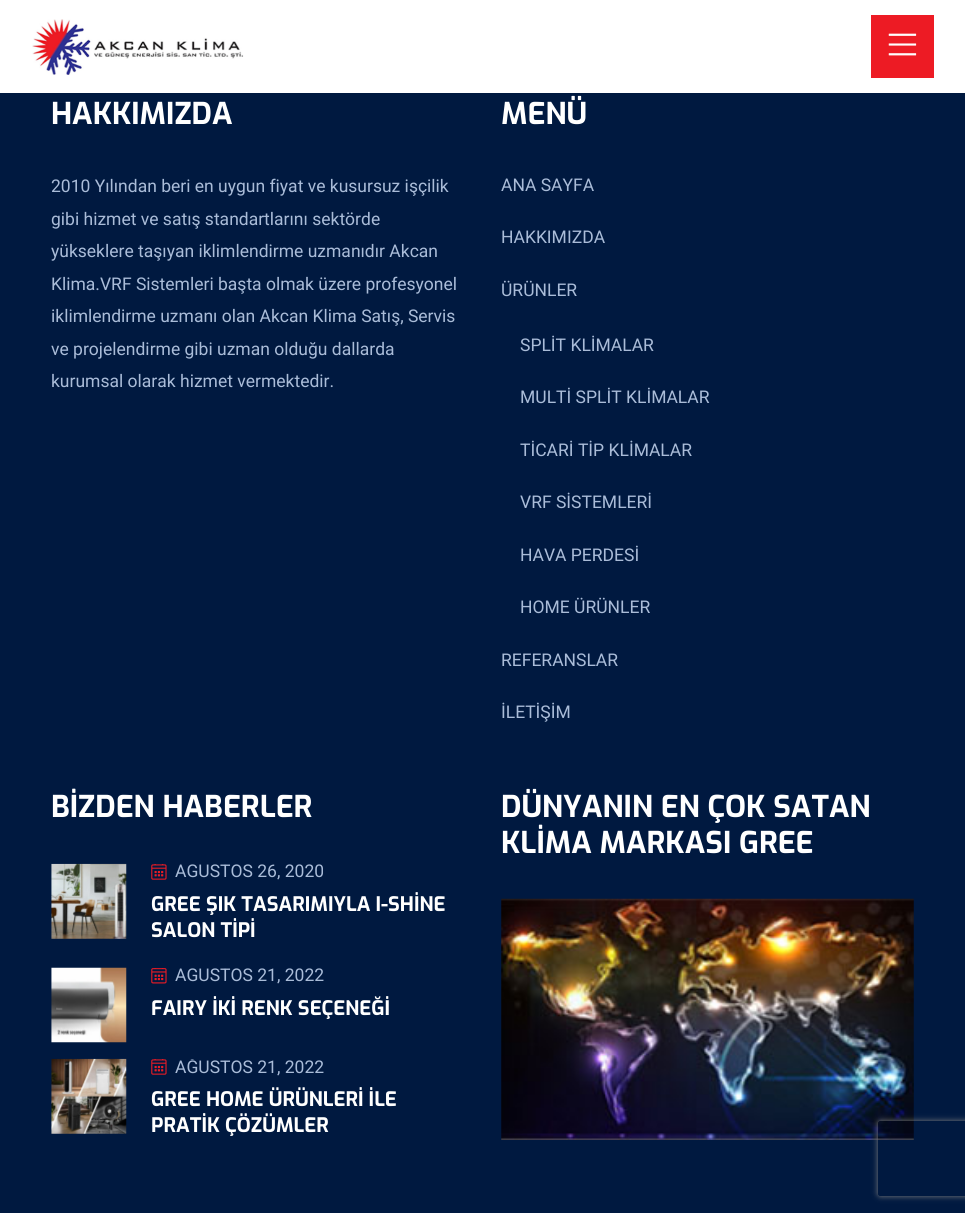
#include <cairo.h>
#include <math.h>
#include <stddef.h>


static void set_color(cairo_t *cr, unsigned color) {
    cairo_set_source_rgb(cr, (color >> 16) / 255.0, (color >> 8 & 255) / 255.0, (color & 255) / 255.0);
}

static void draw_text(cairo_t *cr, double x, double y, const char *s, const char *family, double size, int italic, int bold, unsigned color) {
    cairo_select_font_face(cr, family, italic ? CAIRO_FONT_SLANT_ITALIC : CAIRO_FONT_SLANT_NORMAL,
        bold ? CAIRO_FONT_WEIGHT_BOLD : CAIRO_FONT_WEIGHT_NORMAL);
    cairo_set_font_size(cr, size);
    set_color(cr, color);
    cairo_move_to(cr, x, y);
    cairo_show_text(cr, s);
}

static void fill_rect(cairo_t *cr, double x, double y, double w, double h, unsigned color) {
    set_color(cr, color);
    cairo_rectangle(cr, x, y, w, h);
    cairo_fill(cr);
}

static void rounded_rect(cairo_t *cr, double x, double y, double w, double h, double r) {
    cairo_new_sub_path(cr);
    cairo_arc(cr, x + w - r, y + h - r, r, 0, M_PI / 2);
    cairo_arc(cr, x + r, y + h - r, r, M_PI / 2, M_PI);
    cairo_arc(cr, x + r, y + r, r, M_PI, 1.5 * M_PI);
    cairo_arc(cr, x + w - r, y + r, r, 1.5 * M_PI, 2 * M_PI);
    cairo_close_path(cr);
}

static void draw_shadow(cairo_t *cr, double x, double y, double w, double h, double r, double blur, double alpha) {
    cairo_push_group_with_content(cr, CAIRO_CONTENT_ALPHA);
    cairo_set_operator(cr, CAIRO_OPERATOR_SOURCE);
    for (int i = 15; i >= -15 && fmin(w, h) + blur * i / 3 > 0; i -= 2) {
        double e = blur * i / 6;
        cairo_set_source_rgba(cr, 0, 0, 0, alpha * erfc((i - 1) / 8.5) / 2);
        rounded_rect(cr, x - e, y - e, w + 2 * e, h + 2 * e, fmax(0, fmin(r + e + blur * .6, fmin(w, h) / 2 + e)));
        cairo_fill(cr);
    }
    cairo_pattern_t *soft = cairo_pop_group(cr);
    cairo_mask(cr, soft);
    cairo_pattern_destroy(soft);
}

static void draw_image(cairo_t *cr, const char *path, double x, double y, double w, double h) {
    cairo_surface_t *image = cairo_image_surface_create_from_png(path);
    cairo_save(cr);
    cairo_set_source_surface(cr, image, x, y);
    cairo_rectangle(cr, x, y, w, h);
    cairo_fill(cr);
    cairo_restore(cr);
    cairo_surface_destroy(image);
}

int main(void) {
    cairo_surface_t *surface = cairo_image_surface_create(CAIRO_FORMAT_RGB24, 965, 1213);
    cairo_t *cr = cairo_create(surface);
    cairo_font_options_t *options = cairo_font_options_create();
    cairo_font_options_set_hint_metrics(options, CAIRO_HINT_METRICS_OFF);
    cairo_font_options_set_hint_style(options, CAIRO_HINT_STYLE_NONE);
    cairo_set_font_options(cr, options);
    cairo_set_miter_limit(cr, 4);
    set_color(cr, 0x001940);
    cairo_paint(cr);
    fill_rect(cr, 0, 0, 965, 93, 0xFFFFFF);
    draw_image(cr, "assets/img1.png", 32, 19, 212, 56);
    fill_rect(cr, 871, 15, 63, 63, 0xED1B24);
    draw_image(cr, "assets/img2.png", 888, 33, 29, 23);
    draw_text(cr, 51, 124, "HAKKIMIZDA", "Exo", 30, 0, 1, 0xFFFFFF);
    draw_text(cr, 51, 192, "2010 Yılından beri en uygun fiyat ve kusursuz işçilik", "Roboto", 17.5, 0, 0, 0xAABCD8);
    draw_text(cr, 51, 225, "gibi hizmet ve satış standartlarını sektörde", "Roboto", 17.5, 0, 0, 0xAABCD8);
    draw_text(cr, 51, 257, "yükseklere taşıyan iklimlendirme uzmanıdır Akcan", "Roboto", 17.5, 0, 0, 0xAABCD8);
    draw_text(cr, 51, 290, "Klima.VRF Sistemleri başta olmak üzere profesyonel", "Roboto", 17.5, 0, 0, 0xAABCD8);
    draw_text(cr, 51, 322, "iklimlendirme uzmanı olan Akcan Klima Satış, Servis", "Roboto", 17.5, 0, 0, 0xAABCD8);
    draw_text(cr, 51, 355, "ve projelendirme gibi uzman olduğu dallarda", "Roboto", 17.5, 0, 0, 0xAABCD8);
    draw_text(cr, 51, 387, "kurumsal olarak hizmet vermektedir.", "Roboto", 17.5, 0, 0, 0xAABCD8);
    draw_text(cr, 501, 124, "MENÜ", "Exo", 30, 0, 1, 0xFFFFFF);
    draw_text(cr, 501, 191, "ANA SAYFA", "Roboto", 17.5, 0, 0, 0xAABCD8);
    draw_text(cr, 501, 243, "HAKKIMIZDA", "Roboto", 17.5, 0, 0, 0xAABCD8);
    draw_text(cr, 501, 296, "ÜRÜNLER", "Roboto", 17.5, 0, 0, 0xAABCD8);
    draw_text(cr, 520, 351, "SPLİT KLİMALAR", "Roboto", 17.5, 0, 0, 0xAABCD8);
    draw_text(cr, 520, 403, "MULTİ SPLİT KLİMALAR", "Roboto", 17.5, 0, 0, 0xAABCD8);
    draw_text(cr, 520, 456, "TİCARİ TİP KLİMALAR", "Roboto", 17.5, 0, 0, 0xAABCD8);
    draw_text(cr, 520, 508, "VRF SİSTEMLERİ", "Roboto", 17.5, 0, 0, 0xAABCD8);
    draw_text(cr, 520, 561, "HAVA PERDESİ", "Roboto", 17.5, 0, 0, 0xAABCD8);
    draw_text(cr, 520, 613, "HOME ÜRÜNLER", "Roboto", 17.5, 0, 0, 0xAABCD8);
    draw_text(cr, 501, 666, "REFERANSLAR", "Roboto", 17.5, 0, 0, 0xAABCD8);
    draw_text(cr, 501, 718, "İLETİŞİM", "Roboto", 17.5, 0, 0, 0xAABCD8);
    draw_text(cr, 51, 817, "BİZDEN HABERLER", "Exo", 30, 0, 1, 0xFFFFFF);
    draw_image(cr, "assets/img3.png", 51, 863, 76, 76);
    draw_image(cr, "assets/img4.png", 151, 864, 16, 16);
    cairo_save(cr);
    cairo_rectangle(cr, 151, 864, 313, 80);
    cairo_clip(cr);
    draw_text(cr, 175, 877, "AĞUSTOS 26, 2020", "Roboto", 17.5, 0, 0, 0xAABCD8);
    cairo_restore(cr);
    draw_text(cr, 151, 911, "GREE ŞIK TASARIMIYLA I-SHİNE", "Exo", 20, 0, 1, 0xFFFFFF);
    draw_text(cr, 151, 937, "SALON TİPİ", "Exo", 20, 0, 1, 0xFFFFFF);
    draw_image(cr, "assets/img5.png", 51, 967, 76, 76);
    draw_image(cr, "assets/img6.png", 151, 968, 16, 16);
    cairo_save(cr);
    cairo_rectangle(cr, 151, 968, 313, 55);
    cairo_clip(cr);
    draw_text(cr, 175, 981, "AĞUSTOS 21, 2022", "Roboto", 17.5, 0, 0, 0xAABCD8);
    cairo_restore(cr);
    draw_text(cr, 151, 1015, "FAIRY İKİ RENK SEÇENEĞİ", "Exo", 20, 0, 1, 0xFFFFFF);
    draw_image(cr, "assets/img7.png", 51, 1058, 76, 76);
    draw_image(cr, "assets/img4.png", 151, 1059, 16, 16);
    cairo_save(cr);
    cairo_rectangle(cr, 151, 1059, 313, 81);
    cairo_clip(cr);
    draw_text(cr, 175, 1073, "AĞUSTOS 21, 2022", "Roboto", 17.5, 0, 0, 0xAABCD8);
    cairo_restore(cr);
    draw_text(cr, 151, 1106, "GREE HOME ÜRÜNLERİ İLE", "Exo", 20, 0, 1, 0xFFFFFF);
    draw_text(cr, 151, 1132, "PRATİK ÇÖZÜMLER", "Exo", 20, 0, 1, 0xFFFFFF);
    draw_text(cr, 501, 817, "DÜNYANIN EN ÇOK SATAN", "Exo", 30, 0, 1, 0xFFFFFF);
    draw_text(cr, 501, 853, "KLİMA MARKASI GREE", "Exo", 30, 0, 1, 0xFFFFFF);
    draw_image(cr, "assets/img8.png", 501, 898, 413, 242);
    cairo_save(cr);
    cairo_set_fill_rule(cr, CAIRO_FILL_RULE_EVEN_ODD);
    cairo_new_path(cr);
    cairo_move_to(cr, 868, 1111);
    cairo_line_to(cr, 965, 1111);
    cairo_line_to(cr, 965, 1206);
    cairo_line_to(cr, 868, 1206);
    cairo_close_path(cr);
    cairo_move_to(cr, 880.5, 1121);
    cairo_line_to(cr, 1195.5, 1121);
    cairo_curve_to(cr, 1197, 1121, 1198, 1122, 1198, 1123.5);
    cairo_line_to(cr, 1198, 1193.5);
    cairo_curve_to(cr, 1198, 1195, 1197, 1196, 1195.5, 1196);
    cairo_line_to(cr, 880.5, 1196);
    cairo_curve_to(cr, 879, 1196, 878, 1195, 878, 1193.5);
    cairo_line_to(cr, 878, 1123.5);
    cairo_curve_to(cr, 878, 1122, 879, 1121, 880.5, 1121);
    cairo_close_path(cr);
    cairo_clip(cr);
    set_color(cr, 0x808080);
    draw_shadow(cr, 878, 1121, 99, 75, 2.5, 3, 1);
    cairo_restore(cr);
    cairo_surface_write_to_png(surface, "output.png");
    cairo_font_options_destroy(options);
    cairo_destroy(cr);
    cairo_surface_destroy(surface);
    return 0;
}
